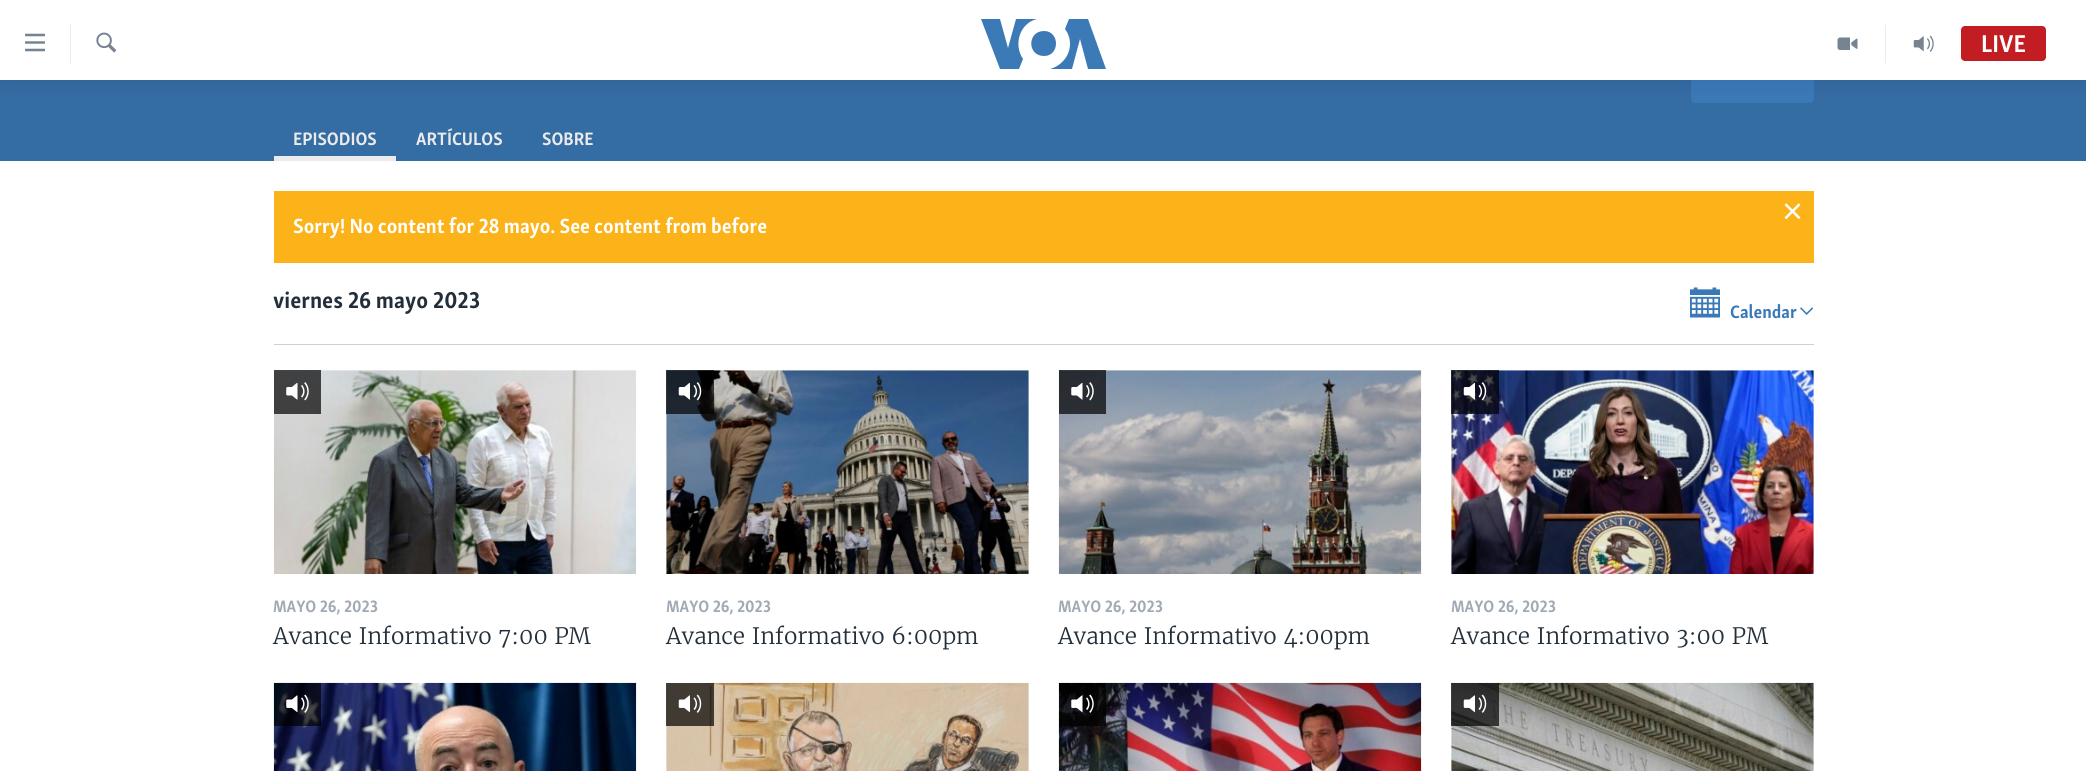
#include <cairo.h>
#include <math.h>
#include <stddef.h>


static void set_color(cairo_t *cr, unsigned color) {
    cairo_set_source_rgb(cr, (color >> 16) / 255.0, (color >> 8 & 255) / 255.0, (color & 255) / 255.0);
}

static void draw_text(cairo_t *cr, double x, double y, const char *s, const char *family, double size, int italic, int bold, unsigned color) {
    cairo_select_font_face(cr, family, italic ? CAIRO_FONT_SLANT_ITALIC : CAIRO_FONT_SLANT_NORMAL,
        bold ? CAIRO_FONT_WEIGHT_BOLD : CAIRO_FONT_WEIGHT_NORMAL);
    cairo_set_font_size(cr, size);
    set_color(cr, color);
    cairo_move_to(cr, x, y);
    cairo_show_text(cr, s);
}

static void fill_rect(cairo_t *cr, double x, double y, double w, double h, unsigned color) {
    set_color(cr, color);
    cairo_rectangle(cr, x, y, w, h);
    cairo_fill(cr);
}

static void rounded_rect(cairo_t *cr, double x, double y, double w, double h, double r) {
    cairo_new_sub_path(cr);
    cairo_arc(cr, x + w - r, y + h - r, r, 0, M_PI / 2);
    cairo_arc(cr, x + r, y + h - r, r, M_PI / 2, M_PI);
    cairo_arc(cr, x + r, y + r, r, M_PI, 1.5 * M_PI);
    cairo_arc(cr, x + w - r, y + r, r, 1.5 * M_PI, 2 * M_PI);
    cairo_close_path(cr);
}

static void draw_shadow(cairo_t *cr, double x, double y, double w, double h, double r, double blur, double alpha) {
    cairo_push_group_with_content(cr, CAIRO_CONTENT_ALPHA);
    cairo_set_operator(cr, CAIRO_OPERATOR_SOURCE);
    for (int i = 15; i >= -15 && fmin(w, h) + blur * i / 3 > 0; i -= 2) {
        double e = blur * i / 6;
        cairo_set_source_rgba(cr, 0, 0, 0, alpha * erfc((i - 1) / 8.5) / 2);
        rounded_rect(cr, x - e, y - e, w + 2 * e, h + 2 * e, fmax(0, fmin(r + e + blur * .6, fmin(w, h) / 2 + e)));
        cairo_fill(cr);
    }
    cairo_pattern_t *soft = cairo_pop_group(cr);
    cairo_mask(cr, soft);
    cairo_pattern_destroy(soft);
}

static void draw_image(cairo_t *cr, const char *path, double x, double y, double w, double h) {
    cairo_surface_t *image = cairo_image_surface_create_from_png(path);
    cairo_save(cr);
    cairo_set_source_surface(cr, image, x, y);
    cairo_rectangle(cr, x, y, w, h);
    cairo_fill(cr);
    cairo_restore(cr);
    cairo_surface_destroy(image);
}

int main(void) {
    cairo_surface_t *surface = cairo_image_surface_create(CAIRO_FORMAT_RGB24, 2086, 771);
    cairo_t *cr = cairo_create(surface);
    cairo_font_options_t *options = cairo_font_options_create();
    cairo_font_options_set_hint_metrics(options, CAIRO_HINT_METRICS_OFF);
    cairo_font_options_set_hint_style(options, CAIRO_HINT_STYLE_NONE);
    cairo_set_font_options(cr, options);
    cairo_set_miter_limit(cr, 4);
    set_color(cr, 0xFFFFFF);
    cairo_paint(cr);
    fill_rect(cr, 0, 80, 2086, 81, 0x346CA4);
    set_color(cr, 0x3A79B7);
    rounded_rect(cr, 1691, 56, 123, 47, 4);
    cairo_fill(cr);
    set_color(cr, 0x000000);
    draw_shadow(cr, 0, 0, 2086, 80, 0, 12.5, 0.1);
    fill_rect(cr, 0, 0, 2086, 80, 0xFFFFFF);
    draw_image(cr, "assets/img1.png", 25, 33, 20, 19);
    fill_rect(cr, 70, 24, 1, 40, 0xEBEBEB);
    draw_image(cr, "assets/img2.png", 96, 32, 21, 21);
    set_color(cr, 0x3B79B7);
    cairo_new_path(cr);
    cairo_move_to(cr, 1023, 59);
    cairo_line_to(cr, 1019, 69);
    cairo_line_to(cr, 1000, 69);
    cairo_line_to(cr, 981, 19);
    cairo_line_to(cr, 1000, 19);
    cairo_line_to(cr, 1008, 48);
    cairo_line_to(cr, 1016, 19);
    cairo_line_to(cr, 1037, 19);
    cairo_curve_to(cr, 1020, 23, 1013, 44, 1023, 59);
    cairo_close_path(cr);
    cairo_move_to(cr, 1044, 31);
    cairo_curve_to(cr, 1027, 31, 1027, 56, 1044, 56);
    cairo_curve_to(cr, 1060, 56, 1060, 31, 1044, 31);
    cairo_close_path(cr);
    cairo_move_to(cr, 1070, 44);
    cairo_curve_to(cr, 1070, 56, 1061, 66, 1050, 69);
    cairo_line_to(cr, 1072, 69);
    cairo_line_to(cr, 1080, 39);
    cairo_line_to(cr, 1088, 69);
    cairo_line_to(cr, 1106, 69);
    cairo_line_to(cr, 1088, 19);
    cairo_line_to(cr, 1069, 19);
    cairo_line_to(cr, 1065, 29);
    cairo_curve_to(cr, 1068, 33, 1070, 38, 1070, 44);
    cairo_close_path(cr);
    cairo_fill(cr);
    fill_rect(cr, 1885, 25, 1, 38, 0xEBEBEB);
    draw_image(cr, "assets/img3.png", 1837, 37, 21, 13);
    draw_image(cr, "assets/img4.png", 1913, 35, 21, 17);
    set_color(cr, 0xC11D22);
    rounded_rect(cr, 1961, 26, 85, 35, 4);
    cairo_fill(cr);
    draw_text(cr, 1981, 52, "LIVE", "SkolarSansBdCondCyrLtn", 25, 0, 1, 0xFFFFFF);
    draw_text(cr, 293, 145, "EPISODIOS", "SkolarSansBdCondCyrLtn", 18.5, 0, 1, 0xEBEBEB);
    fill_rect(cr, 274, 156, 122, 5, 0xEBEBEB);
    draw_text(cr, 416, 145, "ARTÍCULOS", "SkolarSansBdCondCyrLtn", 18.5, 0, 1, 0xEBEBEB);
    draw_text(cr, 542, 145, "SOBRE", "SkolarSansBdCondCyrLtn", 18.5, 0, 1, 0xEBEBEB);
    fill_rect(cr, 274, 344, 1540, 1, 0xCBD1D6);
    fill_rect(cr, 274, 191, 1540, 72, 0xFBB319);
    draw_image(cr, "assets/img5.png", 1784, 203, 17, 17);
    draw_text(cr, 293, 233, "Sorry! No content for 28 mayo. See content from before", "SkolarSansBdCondCyrLtn", 21, 0, 1, 0xFFFFFF);
    draw_text(cr, 273, 308, "viernes 26 mayo 2023", "SkolarSansBdCondCyrLtn", 23.6, 0, 1, 0x222F3A);
    draw_image(cr, "assets/img6.png", 1690, 287, 30, 31);
    draw_text(cr, 1730, 318, "Calendar", "SkolarSansBdCondCyrLtn", 18.5, 0, 1, 0x3A79B7);
    draw_image(cr, "assets/img7.png", 1800, 307, 14, 8);
    fill_rect(cr, 274, 370, 362, 1, 0xF6F7F8);
    draw_image(cr, "assets/img8.png", 274, 370, 363, 204);
    cairo_set_source_rgba(cr, 0, 0, 0, 0.7);
    cairo_rectangle(cr, 274, 370, 47, 44);
    cairo_fill(cr);
    draw_image(cr, "assets/img9.png", 286, 382, 23, 19);
    draw_text(cr, 273, 612, "MAYO 26, 2023", "SkolarSansBdCondCyrLtn", 17, 0, 1, 0xA1AAB4);
    draw_text(cr, 273, 644, "Avance Informativo 7:00 PM", "Merriweather Light", 22.5, 0, 0, 0x222F3A);
    fill_rect(cr, 666, 370, 363, 204, 0xF6F7F8);
    draw_image(cr, "assets/img10.png", 666, 370, 363, 204);
    cairo_set_source_rgba(cr, 0, 0, 0, 0.7);
    cairo_rectangle(cr, 666, 370, 48, 44);
    cairo_fill(cr);
    draw_image(cr, "assets/img11.png", 678, 382, 24, 19);
    draw_text(cr, 666, 612, "MAYO 26, 2023", "SkolarSansBdCondCyrLtn", 17, 0, 1, 0xA1AAB4);
    draw_text(cr, 666, 644, "Avance Informativo 6:00pm", "Merriweather Light", 22.5, 0, 0, 0x222F3A);
    fill_rect(cr, 1059, 370, 362, 1, 0xF6F7F8);
    draw_image(cr, "assets/img12.png", 1058, 370, 364, 204);
    cairo_set_source_rgba(cr, 0, 0, 0, 0.7);
    cairo_rectangle(cr, 1059, 370, 47, 44);
    cairo_fill(cr);
    draw_image(cr, "assets/img13.png", 1071, 382, 23, 19);
    draw_text(cr, 1058, 612, "MAYO 26, 2023", "SkolarSansBdCondCyrLtn", 17, 0, 1, 0xA1AAB4);
    draw_text(cr, 1058, 644, "Avance Informativo 4:00pm", "Merriweather Light", 22.5, 0, 0, 0x222F3A);
    fill_rect(cr, 1451, 370, 363, 204, 0xF6F7F8);
    draw_image(cr, "assets/img14.png", 1451, 370, 363, 204);
    cairo_set_source_rgba(cr, 0, 0, 0, 0.7);
    cairo_rectangle(cr, 1451, 370, 48, 44);
    cairo_fill(cr);
    draw_image(cr, "assets/img15.png", 1463, 382, 24, 19);
    draw_text(cr, 1451, 612, "MAYO 26, 2023", "SkolarSansBdCondCyrLtn", 17, 0, 1, 0xA1AAB4);
    draw_text(cr, 1451, 644, "Avance Informativo 3:00 PM", "Merriweather Light", 22.5, 0, 0, 0x222F3A);
    draw_image(cr, "assets/img16.png", 273, 682, 364, 89);
    cairo_set_source_rgba(cr, 0, 0, 0, 0.7);
    cairo_rectangle(cr, 274, 683, 47, 43);
    cairo_fill(cr);
    draw_image(cr, "assets/img17.png", 286, 694, 23, 19);
    fill_rect(cr, 666, 683, 363, 88, 0xF6F7F8);
    draw_image(cr, "assets/img18.png", 666, 682, 363, 89);
    cairo_set_source_rgba(cr, 0, 0, 0, 0.7);
    cairo_rectangle(cr, 666, 683, 48, 43);
    cairo_fill(cr);
    draw_image(cr, "assets/img19.png", 678, 694, 24, 19);
    draw_image(cr, "assets/img20.png", 1058, 682, 364, 89);
    cairo_rectangle(cr, 1059, 683, 47, 43);
    cairo_fill(cr);
    draw_image(cr, "assets/img21.png", 1071, 694, 23, 19);
    fill_rect(cr, 1451, 683, 363, 88, 0xF6F7F8);
    draw_image(cr, "assets/img22.png", 1451, 682, 363, 89);
    cairo_set_source_rgba(cr, 0, 0, 0, 0.7);
    cairo_rectangle(cr, 1451, 683, 48, 43);
    cairo_fill(cr);
    draw_image(cr, "assets/img23.png", 1463, 694, 24, 19);
    cairo_surface_write_to_png(surface, "output.png");
    cairo_font_options_destroy(options);
    cairo_destroy(cr);
    cairo_surface_destroy(surface);
    return 0;
}
